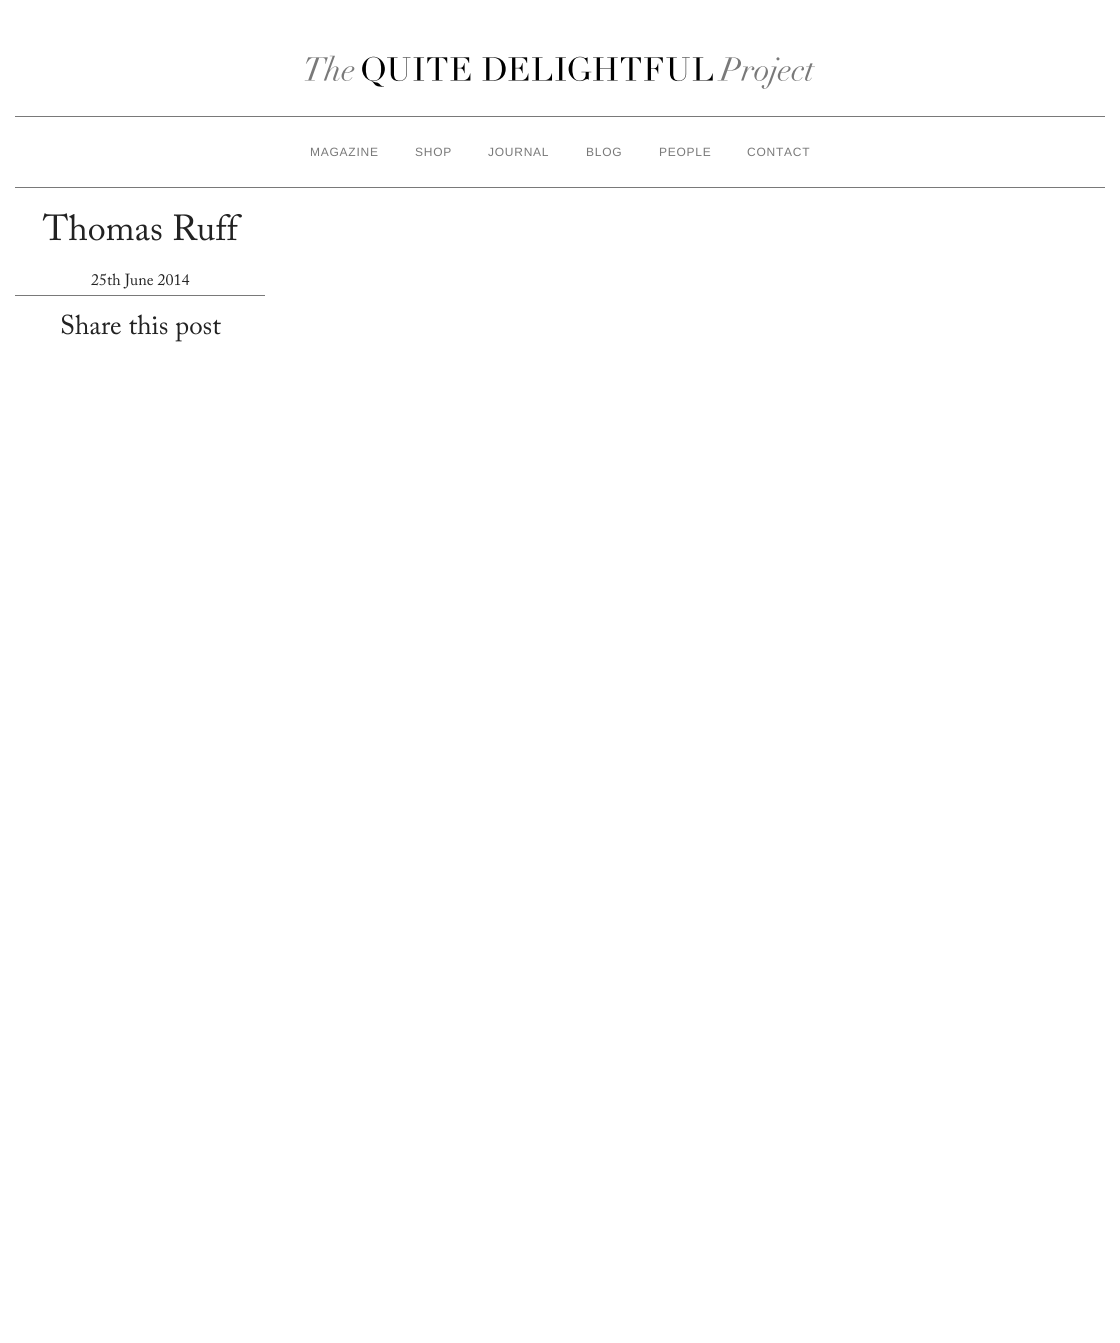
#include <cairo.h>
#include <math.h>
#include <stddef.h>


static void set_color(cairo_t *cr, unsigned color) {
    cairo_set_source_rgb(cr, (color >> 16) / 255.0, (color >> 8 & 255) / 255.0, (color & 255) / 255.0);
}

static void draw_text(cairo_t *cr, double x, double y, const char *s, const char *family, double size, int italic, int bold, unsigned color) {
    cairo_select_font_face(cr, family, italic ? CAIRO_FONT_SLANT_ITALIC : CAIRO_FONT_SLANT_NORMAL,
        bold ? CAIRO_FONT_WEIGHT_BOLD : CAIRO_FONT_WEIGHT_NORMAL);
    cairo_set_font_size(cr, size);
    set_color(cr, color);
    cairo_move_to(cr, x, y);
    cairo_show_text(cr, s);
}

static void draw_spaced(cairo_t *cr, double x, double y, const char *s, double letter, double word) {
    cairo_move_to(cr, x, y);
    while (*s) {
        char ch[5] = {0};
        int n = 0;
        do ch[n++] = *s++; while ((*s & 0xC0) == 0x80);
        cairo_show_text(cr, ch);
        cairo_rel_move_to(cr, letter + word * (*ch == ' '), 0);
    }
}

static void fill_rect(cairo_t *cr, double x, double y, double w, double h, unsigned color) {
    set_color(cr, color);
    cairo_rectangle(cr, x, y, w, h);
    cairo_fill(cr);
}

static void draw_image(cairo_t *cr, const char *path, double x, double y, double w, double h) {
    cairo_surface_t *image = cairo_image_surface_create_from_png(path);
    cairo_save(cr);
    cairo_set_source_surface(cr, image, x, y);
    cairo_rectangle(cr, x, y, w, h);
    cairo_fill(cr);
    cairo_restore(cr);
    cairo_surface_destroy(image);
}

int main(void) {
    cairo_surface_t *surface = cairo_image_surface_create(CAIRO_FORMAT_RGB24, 1120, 1343);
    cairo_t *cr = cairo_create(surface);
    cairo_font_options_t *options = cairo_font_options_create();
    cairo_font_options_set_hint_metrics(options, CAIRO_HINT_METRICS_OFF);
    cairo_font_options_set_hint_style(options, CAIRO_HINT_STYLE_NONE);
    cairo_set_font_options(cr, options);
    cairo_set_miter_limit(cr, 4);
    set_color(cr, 0xFFFFFF);
    cairo_paint(cr);
    draw_image(cr, "assets/img1.png", 304, 55, 511, 34);
    fill_rect(cr, 15, 116, 1090, 1, 0x797979);
    cairo_select_font_face(cr, "Liberation Sans", CAIRO_FONT_SLANT_NORMAL, CAIRO_FONT_WEIGHT_NORMAL);
    cairo_set_font_size(cr, 12);
    draw_spaced(cr, 310, 156, "MAGAZINE", 0.75, 0);
    draw_spaced(cr, 415, 156, "SHOP", 0.75, 0);
    draw_spaced(cr, 488, 156, "JOURNAL", 0.75, 0);
    draw_spaced(cr, 586, 156, "BLOG", 0.75, 0);
    draw_spaced(cr, 659, 156, "PEOPLE", 0.75, 0);
    draw_spaced(cr, 747, 156, "CONTACT", 0.75, 0);
    fill_rect(cr, 15, 187, 1090, 1, 0x797979);
    draw_text(cr, 43, 240, "Thomas Ruff", "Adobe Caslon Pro", 36, 0, 0, 0x222222);
    draw_text(cr, 91, 285, "25th June 2014", "Adobe Caslon Pro", 16, 0, 0, 0x222222);
    fill_rect(cr, 15, 295, 250, 1, 0x797979);
    draw_text(cr, 60, 334, "Share this post", "Adobe Caslon Pro", 27, 0, 0, 0x222222);
    cairo_surface_write_to_png(surface, "output.png");
    cairo_font_options_destroy(options);
    cairo_destroy(cr);
    cairo_surface_destroy(surface);
    return 0;
}
